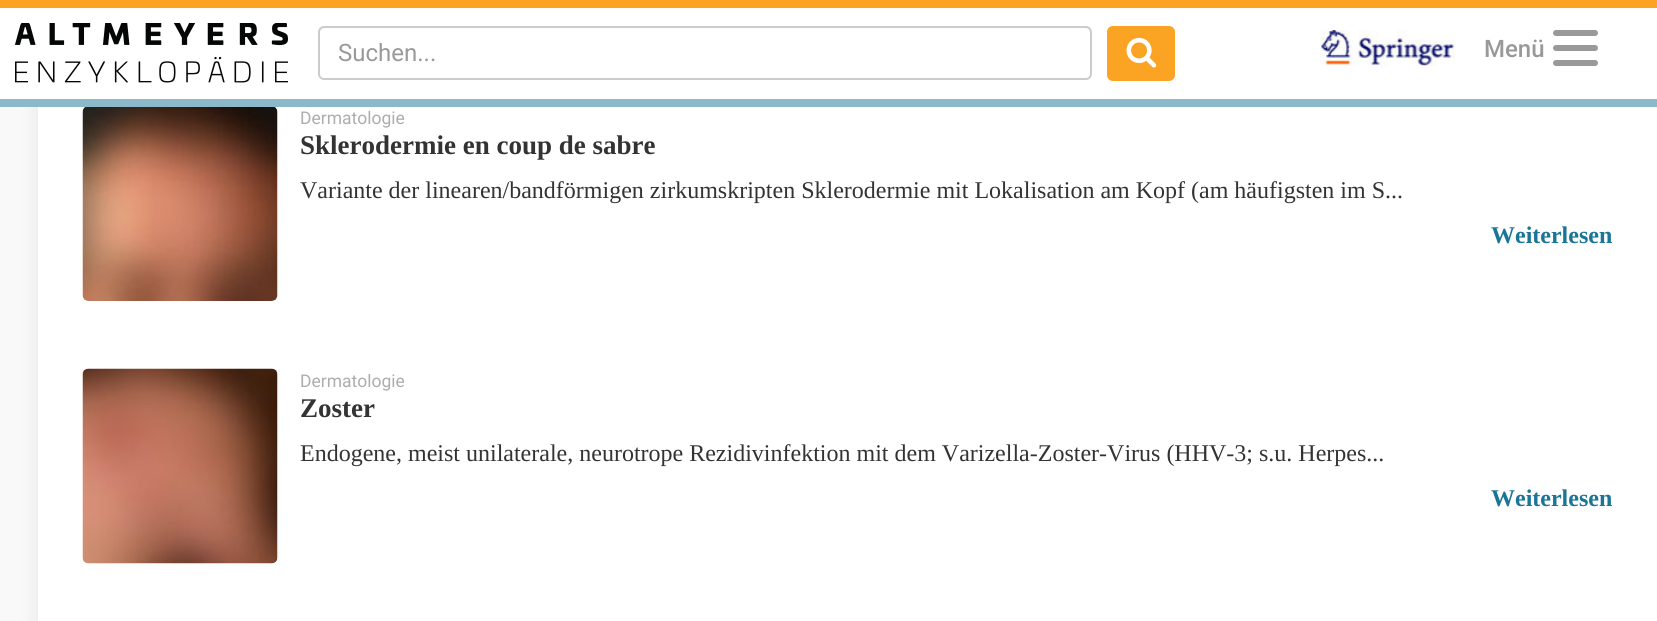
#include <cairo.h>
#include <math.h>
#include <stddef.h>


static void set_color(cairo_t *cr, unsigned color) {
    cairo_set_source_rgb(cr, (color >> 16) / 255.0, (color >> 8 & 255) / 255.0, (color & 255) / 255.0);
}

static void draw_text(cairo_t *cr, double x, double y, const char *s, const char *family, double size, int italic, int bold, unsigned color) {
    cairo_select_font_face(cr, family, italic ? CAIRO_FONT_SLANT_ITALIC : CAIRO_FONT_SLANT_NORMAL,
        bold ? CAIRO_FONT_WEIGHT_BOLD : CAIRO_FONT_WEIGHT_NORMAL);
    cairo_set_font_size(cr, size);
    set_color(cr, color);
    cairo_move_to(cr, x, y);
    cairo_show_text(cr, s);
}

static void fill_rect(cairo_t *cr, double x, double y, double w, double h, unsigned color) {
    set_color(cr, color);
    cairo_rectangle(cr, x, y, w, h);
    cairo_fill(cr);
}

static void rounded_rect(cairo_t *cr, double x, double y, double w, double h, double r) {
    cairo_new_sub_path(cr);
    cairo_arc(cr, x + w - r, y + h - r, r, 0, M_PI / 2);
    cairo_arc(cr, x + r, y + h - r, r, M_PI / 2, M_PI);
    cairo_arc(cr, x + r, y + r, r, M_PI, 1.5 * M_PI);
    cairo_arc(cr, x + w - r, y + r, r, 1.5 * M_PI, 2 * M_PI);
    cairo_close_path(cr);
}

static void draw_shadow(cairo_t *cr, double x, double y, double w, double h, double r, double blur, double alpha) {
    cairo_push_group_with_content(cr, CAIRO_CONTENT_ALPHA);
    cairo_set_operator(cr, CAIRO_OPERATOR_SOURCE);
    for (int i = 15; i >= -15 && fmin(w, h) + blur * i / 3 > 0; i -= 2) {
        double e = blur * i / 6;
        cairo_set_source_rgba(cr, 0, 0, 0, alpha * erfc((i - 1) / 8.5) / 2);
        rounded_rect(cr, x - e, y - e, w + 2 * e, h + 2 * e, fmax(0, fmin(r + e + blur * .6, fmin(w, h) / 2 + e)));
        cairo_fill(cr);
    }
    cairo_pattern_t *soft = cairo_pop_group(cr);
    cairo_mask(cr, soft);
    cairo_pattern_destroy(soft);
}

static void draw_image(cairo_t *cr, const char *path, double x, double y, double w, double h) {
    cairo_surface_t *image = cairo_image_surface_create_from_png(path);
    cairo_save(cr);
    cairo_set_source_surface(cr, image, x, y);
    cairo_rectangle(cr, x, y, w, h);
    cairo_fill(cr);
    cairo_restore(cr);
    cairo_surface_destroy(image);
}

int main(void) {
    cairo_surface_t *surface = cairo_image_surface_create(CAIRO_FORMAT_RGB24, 1657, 621);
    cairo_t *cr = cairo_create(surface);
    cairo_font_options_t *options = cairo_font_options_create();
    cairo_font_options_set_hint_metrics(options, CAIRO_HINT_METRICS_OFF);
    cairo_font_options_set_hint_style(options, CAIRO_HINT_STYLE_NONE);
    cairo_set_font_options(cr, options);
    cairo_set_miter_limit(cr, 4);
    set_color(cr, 0xF9F9F9);
    cairo_paint(cr);
    set_color(cr, 0x000000);
    draw_shadow(cr, 38, -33, 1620, 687, 0, 11, 0.08);
    fill_rect(cr, 0, 8, 1657, 91, 0xFFFFFF);
    fill_rect(cr, 0, 0, 1657, 8, 0xFBA423);
    fill_rect(cr, 0, 99, 1657, 8, 0x8CB9CA);
    draw_image(cr, "assets/img1.png", 15, 23, 273, 60);
    set_color(cr, 0xECECEC);
    cairo_new_path(cr);
    cairo_move_to(cr, 324, 28);
    cairo_line_to(cr, 1086, 28);
    cairo_curve_to(cr, 1088, 28, 1090, 31, 1090, 33);
    cairo_line_to(cr, 1090, 76);
    cairo_curve_to(cr, 1091, 75, 1091, 74, 1091, 73);
    cairo_line_to(cr, 1091, 32);
    cairo_curve_to(cr, 1091, 29, 1089, 27, 1086, 27);
    cairo_line_to(cr, 325, 27);
    cairo_curve_to(cr, 322, 27, 320, 29, 320, 32);
    cairo_line_to(cr, 320, 33);
    cairo_curve_to(cr, 320, 31, 322, 28, 324, 28);
    cairo_close_path(cr);
    cairo_fill(cr);
    rounded_rect(cr, 319, 27, 772, 52, 5);
    set_color(cr, 0xCCCCCC);
    cairo_stroke(cr);
    draw_text(cr, 338, 61, "Suchen...", "Roboto", 24, 0, 0, 0x999999);
    set_color(cr, 0xFBA423);
    rounded_rect(cr, 1108, 27, 66, 53, 5);
    cairo_fill_preserve(cr);
    cairo_stroke(cr);
    draw_image(cr, "assets/img2.png", 1126, 37, 31, 31);
    draw_image(cr, "assets/img3.png", 1320, 30, 135, 36);
    draw_text(cr, 1484, 57, "Menü", "Roboto Medium", 24, 0, 0, 0x999999);
    rounded_rect(cr, 1553, 45, 45, 6, 3);
    cairo_fill(cr);
    rounded_rect(cr, 1553, 30, 45, 6, 3);
    cairo_fill(cr);
    rounded_rect(cr, 1553, 60, 45, 6, 3);
    cairo_fill(cr);
    fill_rect(cr, 38, 107, 1619, 514, 0xFFFFFF);
    draw_image(cr, "assets/img4.png", 82, 107, 196, 194);
    draw_text(cr, 300, 124, "Dermatologie", "Roboto", 17.5, 0, 0, 0xADADAD);
    draw_text(cr, 300, 154, "Sklerodermie en coup de sabre", "Liberation Serif", 27, 0, 1, 0x333333);
    draw_text(cr, 300, 198, "Variante der linearen/bandförmigen zirkumskripten Sklerodermie mit Lokalisation am Kopf (am häufigsten im S...", "Liberation Serif", 24, 0, 0, 0x333333);
    draw_text(cr, 1491, 243, "Weiterlesen", "Liberation Serif", 24, 0, 1, 0x1B7596);
    draw_image(cr, "assets/img5.png", 82, 368, 196, 196);
    draw_text(cr, 300, 387, "Dermatologie", "Roboto", 17.5, 0, 0, 0xADADAD);
    draw_text(cr, 300, 417, "Zoster", "Liberation Serif", 27, 0, 1, 0x333333);
    draw_text(cr, 300, 461, "Endogene, meist unilaterale, neurotrope Rezidivinfektion mit dem Varizella-Zoster-Virus (HHV-3; s.u. Herpes...", "Liberation Serif", 24, 0, 0, 0x333333);
    draw_text(cr, 1491, 506, "Weiterlesen", "Liberation Serif", 24, 0, 1, 0x1B7596);
    cairo_surface_write_to_png(surface, "output.png");
    cairo_font_options_destroy(options);
    cairo_destroy(cr);
    cairo_surface_destroy(surface);
    return 0;
}
